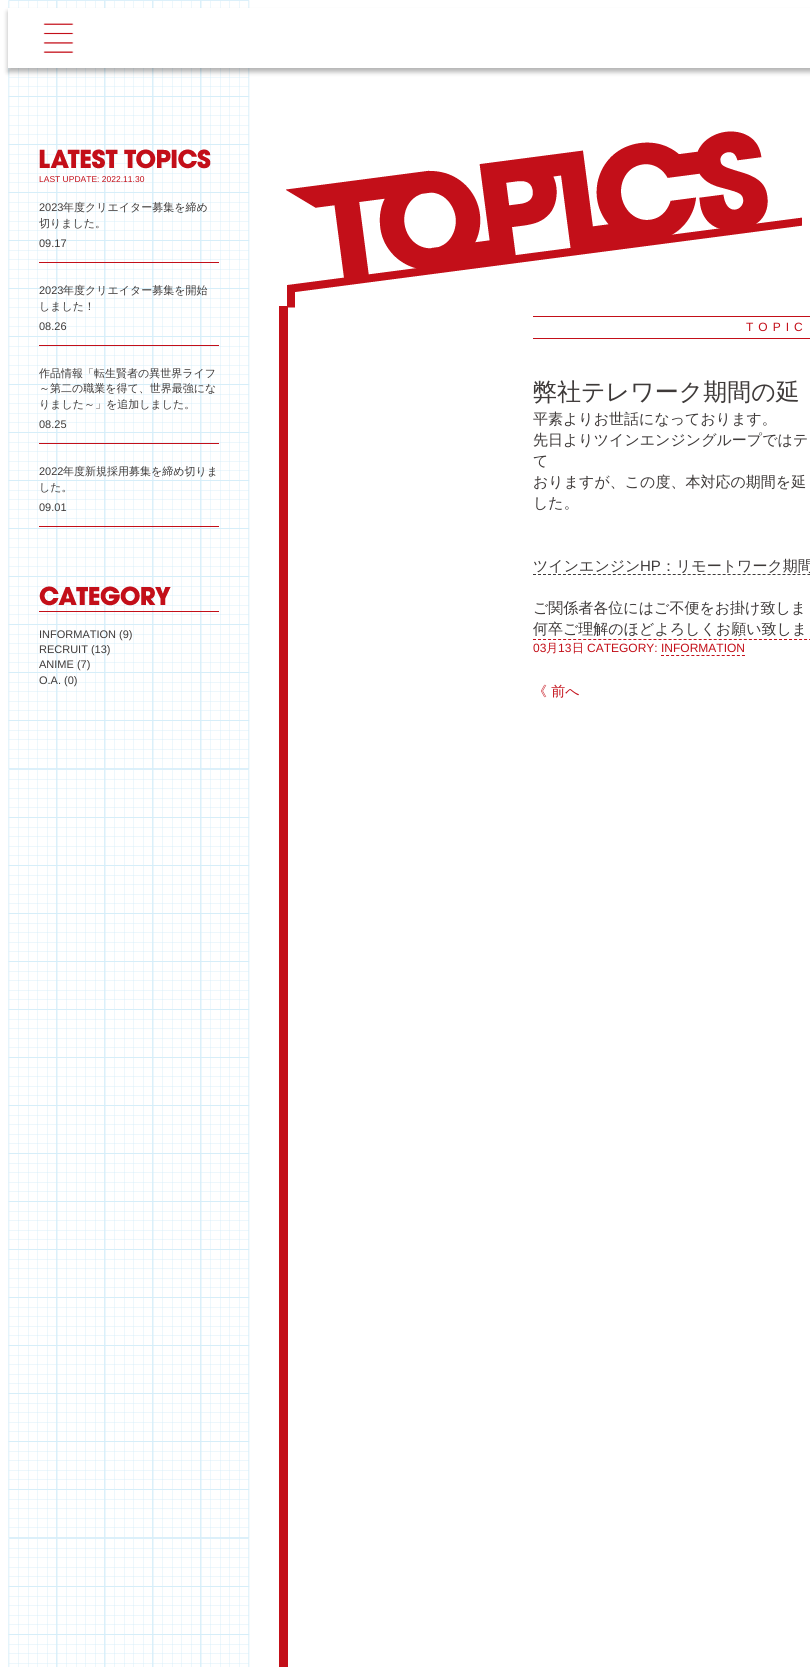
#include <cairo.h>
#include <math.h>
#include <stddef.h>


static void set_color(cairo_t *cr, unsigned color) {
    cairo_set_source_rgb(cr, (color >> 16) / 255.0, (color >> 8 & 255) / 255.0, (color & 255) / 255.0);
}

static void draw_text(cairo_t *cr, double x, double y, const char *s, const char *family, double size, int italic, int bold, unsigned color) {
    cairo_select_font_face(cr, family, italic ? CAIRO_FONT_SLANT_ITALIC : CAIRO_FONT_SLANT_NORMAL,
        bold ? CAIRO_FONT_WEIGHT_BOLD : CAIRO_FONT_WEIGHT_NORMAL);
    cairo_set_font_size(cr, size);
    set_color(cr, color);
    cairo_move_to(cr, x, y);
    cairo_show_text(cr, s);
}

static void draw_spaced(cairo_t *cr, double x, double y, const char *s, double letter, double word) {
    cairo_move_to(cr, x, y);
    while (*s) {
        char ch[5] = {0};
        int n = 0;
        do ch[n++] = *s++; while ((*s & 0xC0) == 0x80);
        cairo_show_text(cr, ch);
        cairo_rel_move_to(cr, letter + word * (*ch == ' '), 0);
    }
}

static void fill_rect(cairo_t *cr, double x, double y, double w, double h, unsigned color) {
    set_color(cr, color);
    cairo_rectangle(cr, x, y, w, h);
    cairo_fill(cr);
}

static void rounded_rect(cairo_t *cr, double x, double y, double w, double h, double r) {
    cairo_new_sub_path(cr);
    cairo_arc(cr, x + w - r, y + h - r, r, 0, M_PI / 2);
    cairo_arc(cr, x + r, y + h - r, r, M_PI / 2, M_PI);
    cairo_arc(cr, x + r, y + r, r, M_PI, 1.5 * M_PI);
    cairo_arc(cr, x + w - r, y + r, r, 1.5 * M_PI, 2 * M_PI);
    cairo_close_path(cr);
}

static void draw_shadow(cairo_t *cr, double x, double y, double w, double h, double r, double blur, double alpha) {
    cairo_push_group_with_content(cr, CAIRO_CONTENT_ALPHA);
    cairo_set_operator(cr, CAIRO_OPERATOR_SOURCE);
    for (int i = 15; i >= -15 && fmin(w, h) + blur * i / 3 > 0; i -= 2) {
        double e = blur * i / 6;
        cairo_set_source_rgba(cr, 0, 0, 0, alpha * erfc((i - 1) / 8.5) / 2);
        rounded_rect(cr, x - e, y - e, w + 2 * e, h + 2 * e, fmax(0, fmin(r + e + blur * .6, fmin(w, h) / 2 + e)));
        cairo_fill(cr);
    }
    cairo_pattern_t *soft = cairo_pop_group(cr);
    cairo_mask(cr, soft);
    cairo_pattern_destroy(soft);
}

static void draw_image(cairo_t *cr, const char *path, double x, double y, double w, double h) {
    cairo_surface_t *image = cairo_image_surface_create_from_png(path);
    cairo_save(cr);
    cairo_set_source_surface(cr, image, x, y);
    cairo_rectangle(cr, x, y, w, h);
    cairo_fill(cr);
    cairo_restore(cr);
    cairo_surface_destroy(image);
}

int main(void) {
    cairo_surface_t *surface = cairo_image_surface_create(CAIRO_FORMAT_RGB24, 810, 1667);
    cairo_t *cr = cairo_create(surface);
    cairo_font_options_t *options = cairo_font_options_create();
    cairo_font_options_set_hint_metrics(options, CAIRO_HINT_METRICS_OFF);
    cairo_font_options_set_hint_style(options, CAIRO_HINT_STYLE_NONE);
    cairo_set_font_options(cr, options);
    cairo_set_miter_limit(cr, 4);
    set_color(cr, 0xFFFFFF);
    cairo_paint(cr);
    draw_image(cr, "assets/img3.png", 8, 0, 242, 1667);
    set_color(cr, 0x000000);
    draw_shadow(cr, 8, 12, 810, 60, 0, 2.5, 0.3);
    fill_rect(cr, 8, 8, 802, 60, 0xFFFFFF);
    draw_image(cr, "assets/img1.png", 43, 23, 31, 30);
    draw_image(cr, "assets/img2.png", 286, 131, 516, 177);
    draw_image(cr, "assets/img4.png", 39, 149, 172, 20);
    draw_text(cr, 39, 182, "LAST UPDATE: 2022.11.30", "Liberation Sans", 8.5, 0, 0, 0xC30F19);
    fill_rect(cr, 39, 262, 180, 1, 0xC30F19);
    draw_text(cr, 39, 211, "2023", "Liberation Sans", 11, 0, 0, 0x3E3A39);
    draw_text(cr, 63, 211, "年度クリエイター募集を締め", "WenQuanYi Zen Hei Medium", 11, 0, 0, 0x3E3A39);
    draw_text(cr, 39, 227, "切りました。", "WenQuanYi Zen Hei Medium", 11, 0, 0, 0x3E3A39);
    draw_text(cr, 39, 247, "09.17", "Liberation Sans", 11, 0, 0, 0x3E3A39);
    fill_rect(cr, 39, 345, 180, 1, 0xC30F19);
    draw_text(cr, 39, 294, "2023", "Liberation Sans", 11, 0, 0, 0x3E3A39);
    draw_text(cr, 63, 294, "年度クリエイター募集を開始", "WenQuanYi Zen Hei Medium", 11, 0, 0, 0x3E3A39);
    draw_text(cr, 39, 310, "しました！", "WenQuanYi Zen Hei Medium", 11, 0, 0, 0x3E3A39);
    draw_text(cr, 39, 330, "08.26", "Liberation Sans", 11, 0, 0, 0x3E3A39);
    fill_rect(cr, 39, 443, 180, 1, 0xC30F19);
    draw_text(cr, 39, 377, "作品情報「転生賢者の異世界ライフ", "WenQuanYi Zen Hei Medium", 11, 0, 0, 0x3E3A39);
    draw_text(cr, 39, 392, "～第二の職業を得て、世界最強にな", "WenQuanYi Zen Hei Medium", 11, 0, 0, 0x3E3A39);
    draw_text(cr, 39, 408, "りました～」を追加しました。", "WenQuanYi Zen Hei Medium", 11, 0, 0, 0x3E3A39);
    draw_text(cr, 39, 428, "08.25", "Liberation Sans", 11, 0, 0, 0x3E3A39);
    fill_rect(cr, 39, 526, 180, 1, 0xC30F19);
    draw_text(cr, 39, 475, "2022", "Liberation Sans", 11, 0, 0, 0x3E3A39);
    draw_text(cr, 63, 475, "年度新規採用募集を締め切りま", "WenQuanYi Zen Hei Medium", 11, 0, 0, 0x3E3A39);
    draw_text(cr, 39, 491, "した。", "WenQuanYi Zen Hei Medium", 11, 0, 0, 0x3E3A39);
    draw_text(cr, 39, 511, "09.01", "Liberation Sans", 11, 0, 0, 0x3E3A39);
    fill_rect(cr, 39, 611, 180, 1, 0xC30F19);
    draw_image(cr, "assets/img5.png", 39, 586, 132, 20);
    draw_text(cr, 39, 638, "INFORMATION (9)", "Liberation Sans", 11, 0, 0, 0x3E3A39);
    draw_text(cr, 39, 653, "RECRUIT (13)", "Liberation Sans", 11, 0, 0, 0x3E3A39);
    draw_text(cr, 39, 668, "ANIME (7)", "Liberation Sans", 11, 0, 0, 0x3E3A39);
    draw_text(cr, 39, 684, "O.A. (0)", "Liberation Sans", 11, 0, 0, 0x3E3A39);
    fill_rect(cr, 279, 306, 9, 1361, 0xC30F19);
    fill_rect(cr, 533, 316, 277, 1, 0xC30F19);
    fill_rect(cr, 533, 338, 277, 1, 0xC30F19);
    cairo_set_font_size(cr, 12);
    draw_spaced(cr, 746, 331, "TOPIC", 5, 0);
    draw_text(cr, 533, 400, "弊社テレワーク期間の延", "WenQuanYi Zen Hei Medium", 24, 0, 0, 0x3E3A39);
    draw_text(cr, 533, 424, "平素よりお世話になっております。", "WenQuanYi Zen Hei Medium", 15, 0, 0, 0x3E3A39);
    draw_text(cr, 533, 445, "先日よりツインエンジングループではテ", "WenQuanYi Zen Hei Medium", 15, 0, 0, 0x3E3A39);
    draw_text(cr, 533, 466, "て", "WenQuanYi Zen Hei Medium", 15, 0, 0, 0x3E3A39);
    draw_text(cr, 533, 487, "おりますが、この度、本対応の期間を延", "WenQuanYi Zen Hei Medium", 15, 0, 0, 0x3E3A39);
    draw_text(cr, 533, 508, "した。", "WenQuanYi Zen Hei Medium", 15, 0, 0, 0x3E3A39);
    draw_text(cr, 533, 571, "ツインエンジン", "WenQuanYi Zen Hei Medium", 15, 0, 0, 0x3E3A39);
    cairo_new_path(cr);
    cairo_move_to(cr, 533, 574.5);
    cairo_line_to(cr, 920, 574.5);
    cairo_set_line_width(cr, 1);
    cairo_set_dash(cr, (double[]){3, 1.99}, 2, 0);
    cairo_stroke(cr);
    draw_text(cr, 640, 571, "HP", "Liberation Sans", 15, 0, 0, 0x3E3A39);
    draw_text(cr, 661, 571, "：リモートワーク期間", "WenQuanYi Zen Hei Medium", 15, 0, 0, 0x3E3A39);
    draw_text(cr, 533, 613, "ご関係者各位にはご不便をお掛け致しま", "WenQuanYi Zen Hei Medium", 15, 0, 0, 0x3E3A39);
    draw_text(cr, 533, 634, "何卒ご理解のほどよろしくお願い致しま", "WenQuanYi Zen Hei Medium", 15, 0, 0, 0x3E3A39);
    cairo_new_path(cr);
    cairo_move_to(cr, 533, 639.5);
    cairo_line_to(cr, 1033, 639.5);
    set_color(cr, 0xC30F19);
    cairo_set_dash(cr, (double[]){3, 2.02}, 2, 0);
    cairo_stroke(cr);
    draw_text(cr, 533, 652, "03", "Liberation Sans", 12, 0, 0, 0xC30F19);
    draw_text(cr, 546, 652, "月", "WenQuanYi Zen Hei Medium", 12, 0, 0, 0xC30F19);
    draw_text(cr, 558, 652, "13", "Liberation Sans", 12, 0, 0, 0xC30F19);
    draw_text(cr, 572, 652, "日", "WenQuanYi Zen Hei Medium", 12, 0, 0, 0xC30F19);
    draw_text(cr, 587, 652, "CATEGORY: INFORMATION", "Liberation Sans", 12, 0, 0, 0xC30F19);
    cairo_new_path(cr);
    cairo_move_to(cr, 661, 655.5);
    cairo_line_to(cr, 745, 655.5);
    cairo_set_dash(cr, (double[]){3, 2.06}, 2, 0);
    cairo_stroke(cr);
    draw_text(cr, 533, 696, "《 前へ", "WenQuanYi Zen Hei Medium", 14, 0, 0, 0xC30F19);
    cairo_surface_write_to_png(surface, "output.png");
    cairo_font_options_destroy(options);
    cairo_destroy(cr);
    cairo_surface_destroy(surface);
    return 0;
}
